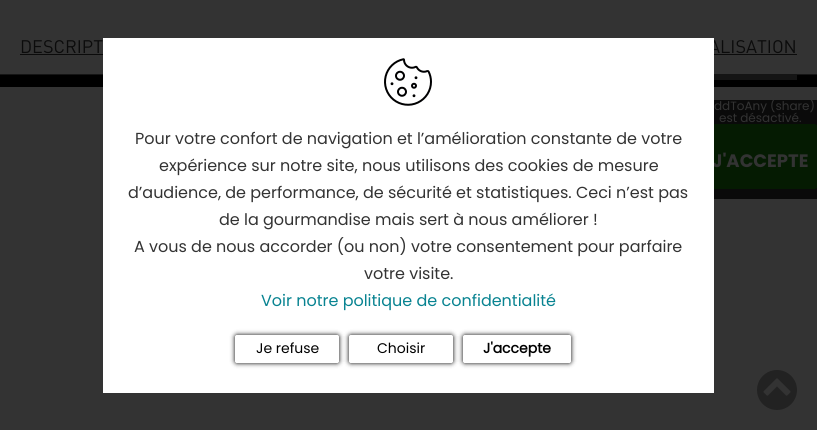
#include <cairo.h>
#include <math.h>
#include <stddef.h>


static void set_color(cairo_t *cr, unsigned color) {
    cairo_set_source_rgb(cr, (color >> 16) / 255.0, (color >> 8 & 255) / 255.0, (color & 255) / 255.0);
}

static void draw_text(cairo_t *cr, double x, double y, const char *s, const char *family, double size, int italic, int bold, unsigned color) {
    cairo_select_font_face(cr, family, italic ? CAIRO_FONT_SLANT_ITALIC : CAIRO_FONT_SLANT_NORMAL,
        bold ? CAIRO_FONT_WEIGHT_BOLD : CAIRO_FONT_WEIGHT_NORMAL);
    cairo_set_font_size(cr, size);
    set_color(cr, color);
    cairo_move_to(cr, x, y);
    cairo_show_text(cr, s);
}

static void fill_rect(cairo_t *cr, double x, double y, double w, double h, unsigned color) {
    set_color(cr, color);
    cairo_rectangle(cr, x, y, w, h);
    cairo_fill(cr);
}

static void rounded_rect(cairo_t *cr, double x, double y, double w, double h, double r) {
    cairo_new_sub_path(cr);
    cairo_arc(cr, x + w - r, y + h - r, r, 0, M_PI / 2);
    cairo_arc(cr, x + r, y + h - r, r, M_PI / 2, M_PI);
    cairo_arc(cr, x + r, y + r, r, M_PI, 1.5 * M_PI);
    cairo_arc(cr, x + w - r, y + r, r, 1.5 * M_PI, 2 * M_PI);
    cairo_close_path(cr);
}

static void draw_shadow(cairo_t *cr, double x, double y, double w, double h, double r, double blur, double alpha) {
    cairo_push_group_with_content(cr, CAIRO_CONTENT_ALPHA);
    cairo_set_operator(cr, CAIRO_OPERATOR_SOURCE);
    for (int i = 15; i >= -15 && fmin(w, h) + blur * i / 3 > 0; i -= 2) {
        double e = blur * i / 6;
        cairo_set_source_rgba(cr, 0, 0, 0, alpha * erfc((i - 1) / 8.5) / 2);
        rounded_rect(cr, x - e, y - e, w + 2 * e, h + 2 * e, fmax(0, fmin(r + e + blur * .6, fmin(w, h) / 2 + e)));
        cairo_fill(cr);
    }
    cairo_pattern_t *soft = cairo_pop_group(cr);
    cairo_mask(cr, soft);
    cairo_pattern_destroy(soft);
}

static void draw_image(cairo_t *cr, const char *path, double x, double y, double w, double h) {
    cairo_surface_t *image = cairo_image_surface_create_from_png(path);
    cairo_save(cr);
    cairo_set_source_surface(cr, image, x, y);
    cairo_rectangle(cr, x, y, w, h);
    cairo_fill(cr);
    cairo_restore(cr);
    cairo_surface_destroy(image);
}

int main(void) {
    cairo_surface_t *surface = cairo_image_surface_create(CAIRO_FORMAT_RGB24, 817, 430);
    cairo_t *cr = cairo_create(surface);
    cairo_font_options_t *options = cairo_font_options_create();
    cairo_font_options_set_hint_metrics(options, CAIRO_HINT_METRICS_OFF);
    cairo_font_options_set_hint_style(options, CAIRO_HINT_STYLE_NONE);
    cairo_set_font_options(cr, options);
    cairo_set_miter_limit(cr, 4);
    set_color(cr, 0x000000);
    cairo_paint(cr);
    fill_rect(cr, 0, 0, 817, 74, 0x333333);
    fill_rect(cr, 0, 74, 817, 1, 0x151515);
    draw_text(cr, 20, 53, "DESCRIPT", "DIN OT", 18, 0, 0, 0x0B0B0B);
    fill_rect(cr, 20, 54, 83, 1, 0x0B0B0B);
    draw_text(cr, 709, 53, "ALISATION", "DIN OT", 18, 0, 0, 0x0B0B0B);
    fill_rect(cr, 714, 54, 83, 1, 0x0B0B0B);
    fill_rect(cr, 714, 75, 83, 5, 0x151515);
    fill_rect(cr, 0, 87, 817, 343, 0x333333);
    fill_rect(cr, 714, 100, 103, 99, 0x0A0A0A);
    draw_text(cr, 714, 110, "ddToAny (share)", "Poppins", 12, 0, 0, 0x333333);
    draw_text(cr, 719, 122, "est désactivé.", "Poppins", 12, 0, 0, 0x333333);
    set_color(cr, 0x051B02);
    rounded_rect(cr, 702, 124, 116, 65, 4);
    cairo_fill(cr);
    draw_text(cr, 712, 167, "J'ACCEPTE", "Poppins", 18, 0, 1, 0x333333);
    fill_rect(cr, 103, 38, 611, 355, 0xFFFFFF);
    draw_image(cr, "assets/img1.png", 384, 58, 48, 48);
    draw_text(cr, 135, 144, "Pour votre confort de navigation et l’amélioration constante de votre", "Poppins", 16, 0, 0, 0x333333);
    draw_text(cr, 159, 171, "expérience sur notre site, nous utilisons des cookies de mesure", "Poppins", 16, 0, 0, 0x333333);
    draw_text(cr, 128, 198, "d’audience, de performance, de sécurité et statistiques. Ceci n’est pas", "Poppins", 16, 0, 0, 0x333333);
    draw_text(cr, 219, 225, "de la gourmandise mais sert à nous améliorer !", "Poppins", 16, 0, 0, 0x333333);
    draw_text(cr, 134, 252, "A vous de nous accorder (ou non) votre consentement pour parfaire", "Poppins", 16, 0, 0, 0x333333);
    draw_text(cr, 364, 279, "votre visite.", "Poppins", 16, 0, 0, 0x333333);
    draw_text(cr, 261, 306, "Voir notre politique de confidentialité", "Poppins", 16, 0, 0, 0x088391);
    cairo_save(cr);
    cairo_set_fill_rule(cr, CAIRO_FILL_RULE_EVEN_ODD);
    cairo_new_path(cr);
    cairo_move_to(cr, 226, 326);
    cairo_line_to(cr, 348, 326);
    cairo_line_to(cr, 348, 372);
    cairo_line_to(cr, 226, 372);
    cairo_close_path(cr);
    cairo_move_to(cr, 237, 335);
    cairo_line_to(cr, 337, 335);
    cairo_curve_to(cr, 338, 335, 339, 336, 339, 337);
    cairo_line_to(cr, 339, 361);
    cairo_curve_to(cr, 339, 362, 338, 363, 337, 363);
    cairo_line_to(cr, 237, 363);
    cairo_curve_to(cr, 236, 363, 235, 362, 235, 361);
    cairo_line_to(cr, 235, 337);
    cairo_curve_to(cr, 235, 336, 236, 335, 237, 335);
    cairo_close_path(cr);
    cairo_clip(cr);
    set_color(cr, 0x000000);
    draw_shadow(cr, 235, 335, 104, 28, 2, 2.5, 1);
    cairo_restore(cr);
    draw_text(cr, 256, 353, "Je refuse", "Poppins", 14, 0, 0, 0x000000);
    cairo_save(cr);
    cairo_set_fill_rule(cr, CAIRO_FILL_RULE_EVEN_ODD);
    cairo_new_path(cr);
    cairo_move_to(cr, 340, 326);
    cairo_line_to(cr, 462, 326);
    cairo_line_to(cr, 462, 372);
    cairo_line_to(cr, 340, 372);
    cairo_close_path(cr);
    cairo_move_to(cr, 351, 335);
    cairo_line_to(cr, 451, 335);
    cairo_curve_to(cr, 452, 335, 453, 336, 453, 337);
    cairo_line_to(cr, 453, 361);
    cairo_curve_to(cr, 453, 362, 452, 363, 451, 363);
    cairo_line_to(cr, 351, 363);
    cairo_curve_to(cr, 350, 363, 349, 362, 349, 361);
    cairo_line_to(cr, 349, 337);
    cairo_curve_to(cr, 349, 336, 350, 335, 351, 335);
    cairo_close_path(cr);
    cairo_clip(cr);
    set_color(cr, 0x000000);
    draw_shadow(cr, 349, 335, 104, 28, 2, 2.5, 1);
    cairo_restore(cr);
    draw_text(cr, 377, 353, "Choisir", "Poppins", 14, 0, 0, 0x000000);
    cairo_save(cr);
    cairo_set_fill_rule(cr, CAIRO_FILL_RULE_EVEN_ODD);
    cairo_new_path(cr);
    cairo_move_to(cr, 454, 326);
    cairo_line_to(cr, 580, 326);
    cairo_line_to(cr, 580, 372);
    cairo_line_to(cr, 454, 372);
    cairo_close_path(cr);
    cairo_move_to(cr, 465, 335);
    cairo_line_to(cr, 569, 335);
    cairo_curve_to(cr, 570, 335, 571, 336, 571, 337);
    cairo_line_to(cr, 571, 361);
    cairo_curve_to(cr, 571, 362, 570, 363, 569, 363);
    cairo_line_to(cr, 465, 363);
    cairo_curve_to(cr, 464, 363, 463, 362, 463, 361);
    cairo_line_to(cr, 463, 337);
    cairo_curve_to(cr, 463, 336, 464, 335, 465, 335);
    cairo_close_path(cr);
    cairo_clip(cr);
    set_color(cr, 0x000000);
    draw_shadow(cr, 463, 335, 108, 28, 2, 2.5, 1);
    cairo_restore(cr);
    draw_text(cr, 483, 353, "J'accepte", "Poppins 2", 14, 0, 1, 0x000000);
    set_color(cr, 0x222222);
    cairo_new_path(cr);
    cairo_arc(cr, 777, 390, 20, 0, 2 * M_PI);
    cairo_fill(cr);
    draw_image(cr, "assets/img2.png", 763, 378, 28, 18);
    cairo_surface_write_to_png(surface, "output.png");
    cairo_font_options_destroy(options);
    cairo_destroy(cr);
    cairo_surface_destroy(surface);
    return 0;
}
